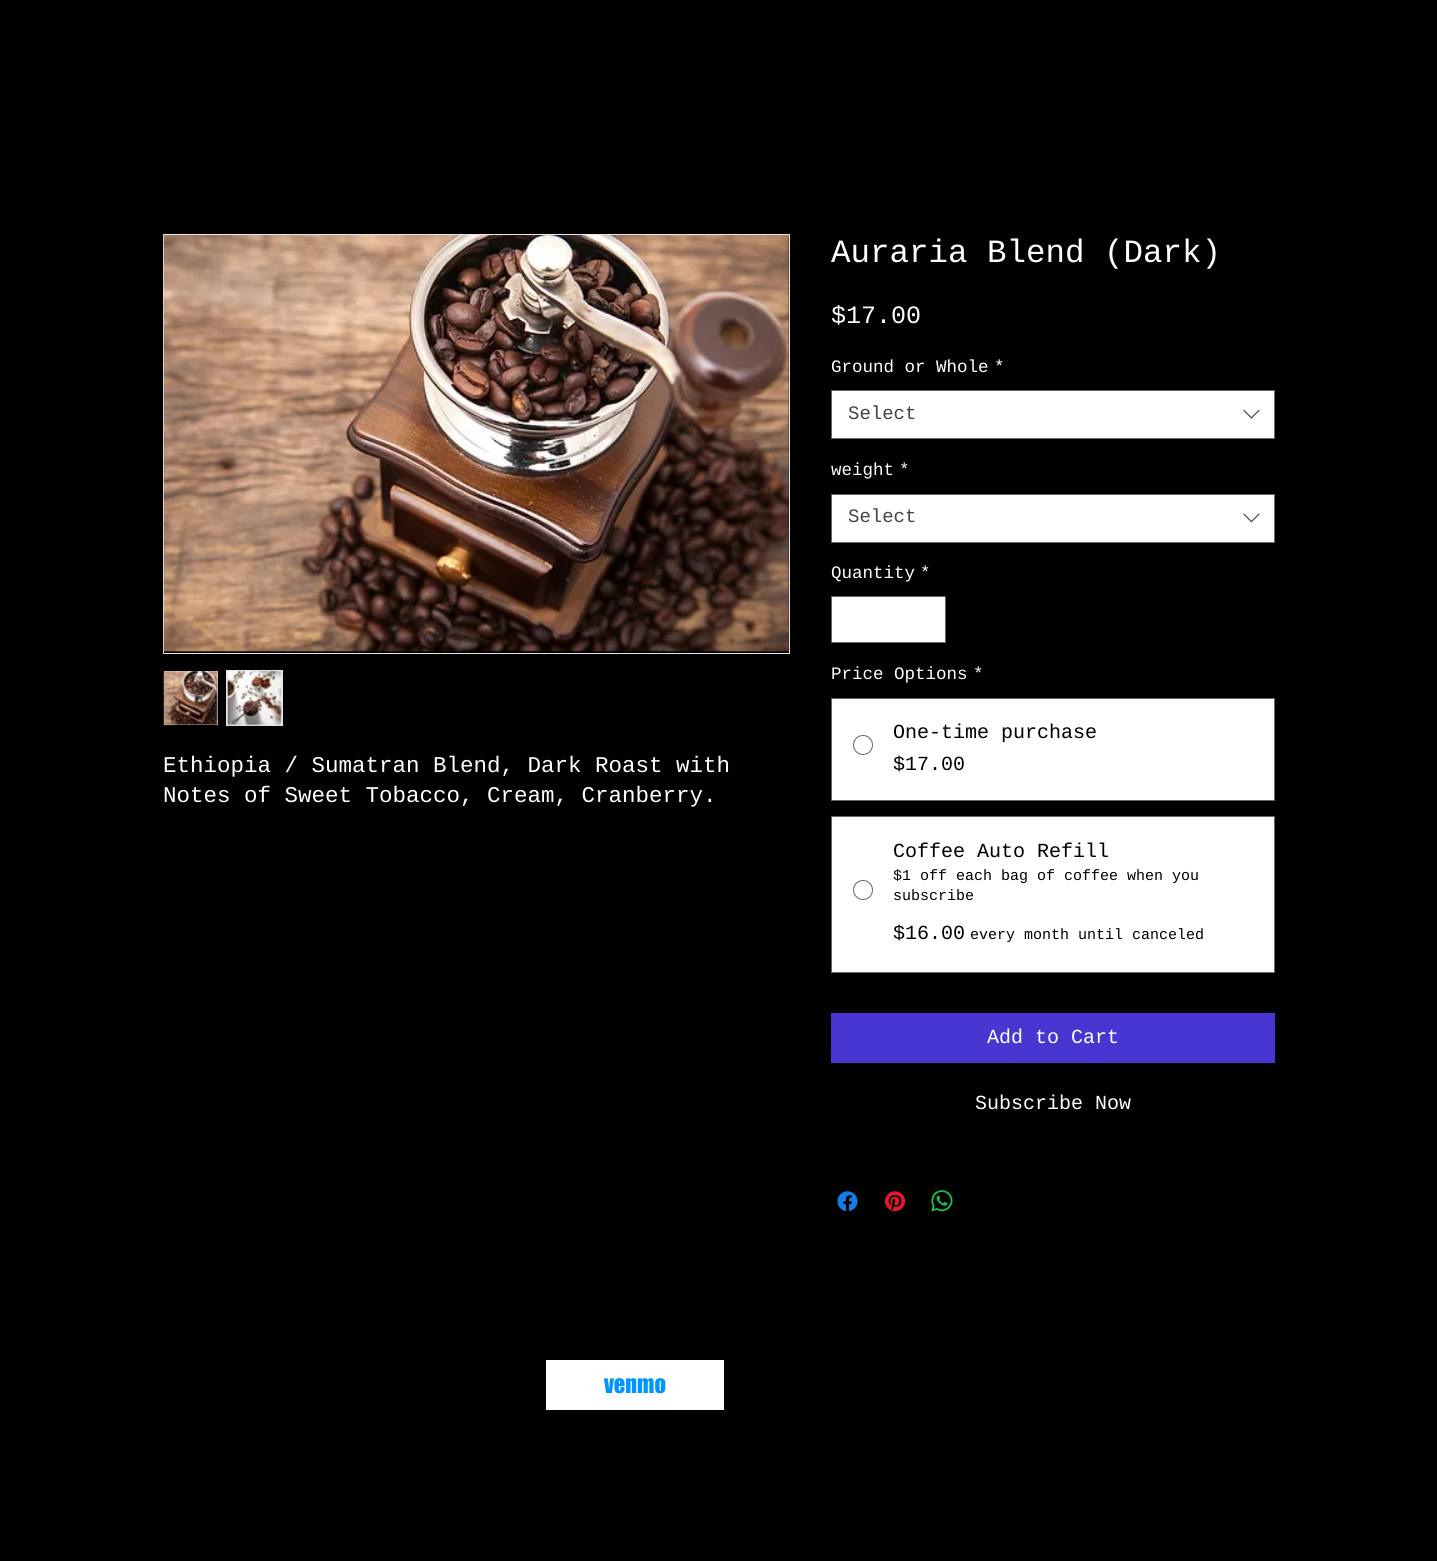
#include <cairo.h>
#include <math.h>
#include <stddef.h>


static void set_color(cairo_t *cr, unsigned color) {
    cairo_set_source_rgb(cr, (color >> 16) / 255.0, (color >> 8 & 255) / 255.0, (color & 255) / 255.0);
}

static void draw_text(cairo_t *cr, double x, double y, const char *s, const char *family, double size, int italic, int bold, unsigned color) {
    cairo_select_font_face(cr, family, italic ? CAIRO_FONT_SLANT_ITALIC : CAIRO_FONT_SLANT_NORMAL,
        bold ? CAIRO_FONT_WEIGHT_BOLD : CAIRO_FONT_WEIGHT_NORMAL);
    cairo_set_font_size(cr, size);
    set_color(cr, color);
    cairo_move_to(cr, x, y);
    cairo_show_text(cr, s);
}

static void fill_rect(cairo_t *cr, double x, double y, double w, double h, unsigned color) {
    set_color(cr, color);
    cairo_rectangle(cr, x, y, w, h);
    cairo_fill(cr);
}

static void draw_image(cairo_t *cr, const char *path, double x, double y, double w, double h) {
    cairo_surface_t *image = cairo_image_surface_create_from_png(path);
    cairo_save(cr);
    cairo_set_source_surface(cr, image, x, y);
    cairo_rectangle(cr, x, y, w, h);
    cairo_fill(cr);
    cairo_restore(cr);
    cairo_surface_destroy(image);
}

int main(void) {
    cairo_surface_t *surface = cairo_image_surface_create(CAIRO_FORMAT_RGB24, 1437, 1561);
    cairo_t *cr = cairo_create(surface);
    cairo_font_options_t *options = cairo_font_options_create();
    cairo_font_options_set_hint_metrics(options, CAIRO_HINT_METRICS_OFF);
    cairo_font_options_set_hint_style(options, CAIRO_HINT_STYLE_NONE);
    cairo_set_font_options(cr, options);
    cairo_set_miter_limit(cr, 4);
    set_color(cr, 0x000000);
    cairo_paint(cr);
    cairo_rectangle(cr, 163.5, 234.5, 626, 419);
    set_color(cr, 0xE8E6E6);
    cairo_set_line_width(cr, 1);
    cairo_stroke(cr);
    draw_image(cr, "assets/img1.png", 163, 235, 626, 417);
    fill_rect(cr, 164, 671, 54, 54, 0xE8E6E6);
    draw_image(cr, "assets/img2.png", 163, 671, 55, 55);
    fill_rect(cr, 226, 670, 57, 56, 0xE8E6E6);
    draw_image(cr, "assets/img3.png", 227, 671, 55, 55);
    draw_text(cr, 163, 772, "Ethiopia / Sumatran Blend, Dark Roast with", "Liberation Mono", 22.5, 0, 0, 0xFFFFFF);
    draw_text(cr, 163, 802, "Notes of Sweet Tobacco, Cream, Cranberry.", "Liberation Mono", 22.5, 0, 0, 0xFFFFFF);
    draw_text(cr, 831, 262, "Auraria Blend (Dark)", "Liberation Mono", 32.5, 0, 0, 0xFFFFFF);
    draw_text(cr, 831, 323, "$17.00", "Liberation Mono", 25, 0, 0, 0xFFFFFF);
    draw_text(cr, 831, 372, "Ground or Whole", "Liberation Mono", 17.5, 0, 0, 0xFFFFFF);
    draw_text(cr, 994, 372, "*", "Liberation Mono", 17.5, 0, 0, 0xFFFFFF);
    cairo_rectangle(cr, 831.5, 390.5, 443, 48);
    cairo_fill_preserve(cr);
    set_color(cr, 0x666666);
    cairo_stroke(cr);
    draw_text(cr, 848, 419, "Select", "Liberation Mono", 19, 0, 0, 0x444444);
    draw_image(cr, "assets/img4.png", 1243, 409, 17, 10);
    draw_text(cr, 831, 475, "weight", "Liberation Mono", 17.5, 0, 0, 0xFFFFFF);
    draw_text(cr, 899, 475, "*", "Liberation Mono", 17.5, 0, 0, 0xFFFFFF);
    cairo_rectangle(cr, 831.5, 494.5, 443, 48);
    cairo_fill_preserve(cr);
    set_color(cr, 0x666666);
    cairo_stroke(cr);
    draw_text(cr, 848, 522, "Select", "Liberation Mono", 19, 0, 0, 0x444444);
    draw_image(cr, "assets/img5.png", 1243, 513, 17, 10);
    draw_text(cr, 831, 578, "Quantity", "Liberation Mono", 17.5, 0, 0, 0xFFFFFF);
    draw_text(cr, 920, 578, "*", "Liberation Mono", 17.5, 0, 0, 0xFFFFFF);
    cairo_rectangle(cr, 831.5, 596.5, 114, 46);
    cairo_fill_preserve(cr);
    set_color(cr, 0x666666);
    cairo_stroke(cr);
    draw_text(cr, 831, 679, "Price Options", "Liberation Mono", 17.5, 0, 0, 0xFFFFFF);
    draw_text(cr, 973, 679, "*", "Liberation Mono", 17.5, 0, 0, 0xFFFFFF);
    cairo_rectangle(cr, 831.5, 698.5, 443, 102);
    cairo_fill_preserve(cr);
    set_color(cr, 0x666666);
    cairo_stroke(cr);
    cairo_arc(cr, 863, 745, 9.5, 0, 2 * M_PI);
    cairo_stroke(cr);
    draw_text(cr, 893, 738, "One-time purchase", "Liberation Mono", 20, 0, 0, 0x000000);
    draw_text(cr, 893, 770, "$17.00", "Liberation Mono", 20, 0, 0, 0x000000);
    set_color(cr, 0xFFFFFF);
    cairo_rectangle(cr, 831.5, 816.5, 443, 156);
    cairo_fill_preserve(cr);
    set_color(cr, 0x666666);
    cairo_stroke(cr);
    cairo_arc(cr, 863, 890, 9.5, 0, 2 * M_PI);
    cairo_stroke(cr);
    draw_text(cr, 893, 857, "Coffee Auto Refill", "Liberation Mono", 20, 0, 0, 0x000000);
    draw_text(cr, 893, 880, "$1 off each bag of coffee when you", "Liberation Mono", 15, 0, 0, 0x000000);
    draw_text(cr, 893, 900, "subscribe", "Liberation Mono", 15, 0, 0, 0x000000);
    draw_text(cr, 893, 939, "$16.00", "Liberation Mono", 20, 0, 0, 0x000000);
    draw_text(cr, 970, 939, "every month until canceled", "Liberation Mono", 15, 0, 0, 0x000000);
    fill_rect(cr, 831, 1013, 444, 50, 0x4836D3);
    draw_text(cr, 987, 1043, "Add to Cart", "Liberation Mono", 20, 0, 0, 0xFFFFFF);
    draw_text(cr, 975, 1109, "Subscribe Now", "Liberation Mono", 20, 0, 0, 0xFFFFFF);
    draw_image(cr, "assets/img6.png", 837, 1191, 21, 21);
    draw_image(cr, "assets/img7.png", 885, 1191, 20, 21);
    draw_image(cr, "assets/img8.png", 931, 1190, 22, 22);
    fill_rect(cr, 546, 1360, 178, 50, 0xFFFFFF);
    draw_text(cr, 604, 1393, "venmo", "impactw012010", 22.5, 0, 0, 0x0095FF);
    cairo_surface_write_to_png(surface, "output.png");
    cairo_font_options_destroy(options);
    cairo_destroy(cr);
    cairo_surface_destroy(surface);
    return 0;
}
